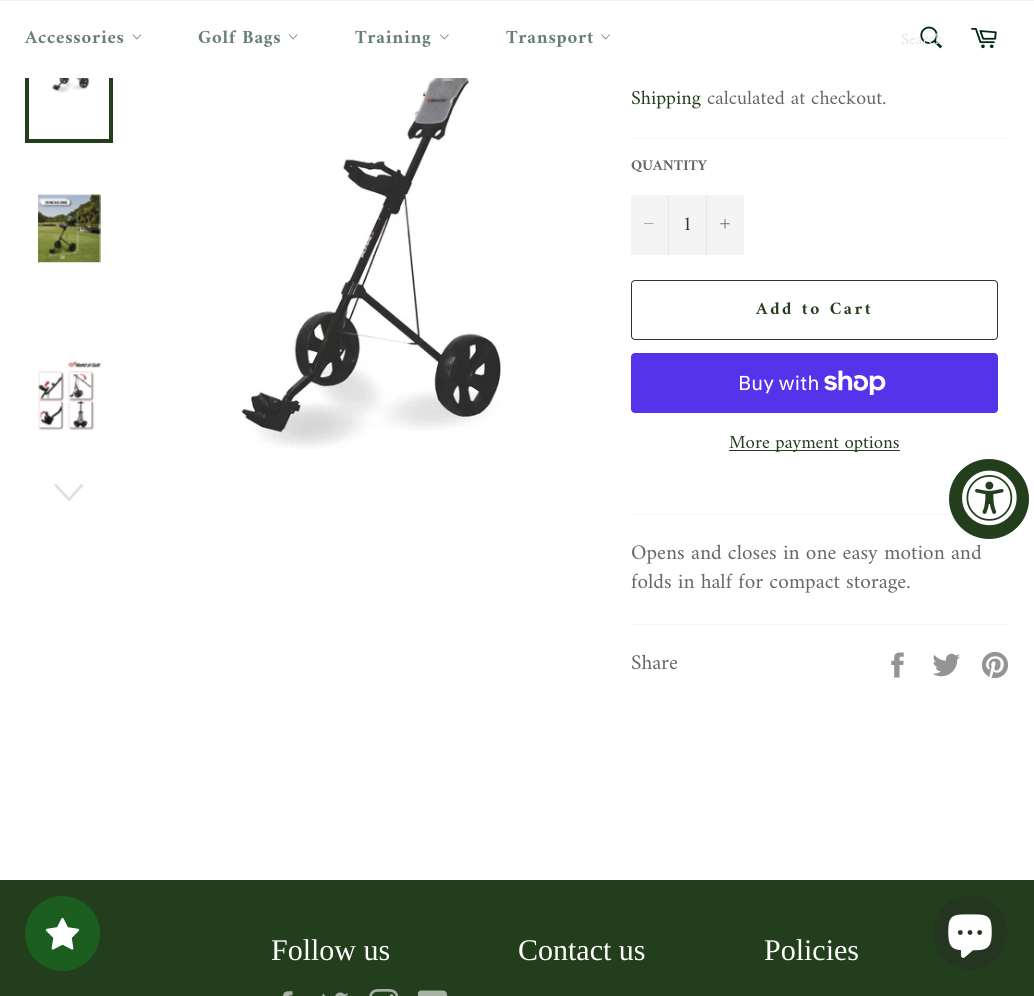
#include <cairo.h>
#include <math.h>
#include <stddef.h>


static void set_color(cairo_t *cr, unsigned color) {
    cairo_set_source_rgb(cr, (color >> 16) / 255.0, (color >> 8 & 255) / 255.0, (color & 255) / 255.0);
}

static void draw_text(cairo_t *cr, double x, double y, const char *s, const char *family, double size, int italic, int bold, unsigned color) {
    cairo_select_font_face(cr, family, italic ? CAIRO_FONT_SLANT_ITALIC : CAIRO_FONT_SLANT_NORMAL,
        bold ? CAIRO_FONT_WEIGHT_BOLD : CAIRO_FONT_WEIGHT_NORMAL);
    cairo_set_font_size(cr, size);
    set_color(cr, color);
    cairo_move_to(cr, x, y);
    cairo_show_text(cr, s);
}

static void draw_spaced(cairo_t *cr, double x, double y, const char *s, double letter, double word) {
    cairo_move_to(cr, x, y);
    while (*s) {
        char ch[5] = {0};
        int n = 0;
        do ch[n++] = *s++; while ((*s & 0xC0) == 0x80);
        cairo_show_text(cr, ch);
        cairo_rel_move_to(cr, letter + word * (*ch == ' '), 0);
    }
}

static void fill_rect(cairo_t *cr, double x, double y, double w, double h, unsigned color) {
    set_color(cr, color);
    cairo_rectangle(cr, x, y, w, h);
    cairo_fill(cr);
}

static void rounded_rect(cairo_t *cr, double x, double y, double w, double h, double r) {
    cairo_new_sub_path(cr);
    cairo_arc(cr, x + w - r, y + h - r, r, 0, M_PI / 2);
    cairo_arc(cr, x + r, y + h - r, r, M_PI / 2, M_PI);
    cairo_arc(cr, x + r, y + r, r, M_PI, 1.5 * M_PI);
    cairo_arc(cr, x + w - r, y + r, r, 1.5 * M_PI, 2 * M_PI);
    cairo_close_path(cr);
}

static void draw_image(cairo_t *cr, const char *path, double x, double y, double w, double h) {
    cairo_surface_t *image = cairo_image_surface_create_from_png(path);
    cairo_save(cr);
    cairo_set_source_surface(cr, image, x, y);
    cairo_rectangle(cr, x, y, w, h);
    cairo_fill(cr);
    cairo_restore(cr);
    cairo_surface_destroy(image);
}

int main(void) {
    cairo_surface_t *surface = cairo_image_surface_create(CAIRO_FORMAT_RGB24, 1034, 996);
    cairo_t *cr = cairo_create(surface);
    cairo_font_options_t *options = cairo_font_options_create();
    cairo_font_options_set_hint_metrics(options, CAIRO_HINT_METRICS_OFF);
    cairo_font_options_set_hint_style(options, CAIRO_HINT_STYLE_NONE);
    cairo_set_font_options(cr, options);
    cairo_set_miter_limit(cr, 4);
    set_color(cr, 0xFFFFFF);
    cairo_paint(cr);
    draw_image(cr, "assets/img7.png", 38, 78, 52, 15);
    cairo_rectangle(cr, 27, -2, 84, 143);
    set_color(cr, 0x233E1C);
    cairo_set_line_width(cr, 4);
    cairo_stroke(cr);
    fill_rect(cr, 25, 1, 88, 77, 0xFFFFFF);
    fill_rect(cr, 0, 0, 1034, 1, 0xF2F2F2);
    cairo_select_font_face(cr, "Amiri", CAIRO_FONT_SLANT_NORMAL, CAIRO_FONT_WEIGHT_BOLD);
    cairo_set_font_size(cr, 18.75);
    set_color(cr, 0x677E73);
    draw_spaced(cr, 25, 43, "Accessories", 0.75, 0);
    draw_image(cr, "assets/img1.png", 132, 34, 10, 6);
    draw_spaced(cr, 198, 43, "Golf Bags", 0.75, 0);
    draw_image(cr, "assets/img2.png", 288, 34, 10, 6);
    draw_spaced(cr, 355, 43, "Training", 0.75, 0);
    draw_image(cr, "assets/img3.png", 440, 34, 9, 6);
    draw_spaced(cr, 506, 43, "Transport", 0.75, 0);
    draw_image(cr, "assets/img4.png", 601, 34, 9, 6);
    draw_image(cr, "assets/img5.png", 920, 26, 22, 23);
    cairo_save(cr);
    cairo_rectangle(cr, 901, 25, 40, 29);
    cairo_clip(cr);
    draw_text(cr, 901, 44, "Search", "Amiri", 16, 0, 0, 0xDFE4E2);
    cairo_restore(cr);
    draw_image(cr, "assets/img6.png", 971, 28, 26, 21);
    draw_image(cr, "assets/img8.png", 38, 194, 63, 69);
    draw_image(cr, "assets/img9.png", 38, 361, 63, 70);
    set_color(cr, 0xE0E0E0);
    cairo_new_path(cr);
    cairo_move_to(cr, 81.5, 483.5);
    cairo_line_to(cr, 83.5, 485.5);
    cairo_line_to(cr, 69, 501.5);
    cairo_line_to(cr, 54, 485.5);
    cairo_line_to(cr, 56, 483.5);
    cairo_line_to(cr, 69, 497.5);
    cairo_close_path(cr);
    cairo_fill(cr);
    draw_image(cr, "assets/img10.png", 148, 78, 354, 371);
    draw_text(cr, 631, 104, "Shipping", "Amiri", 20, 0, 0, 0x233E1C);
    draw_text(cr, 707, 104, "calculated at checkout.", "Amiri", 20, 0, 0, 0x666666);
    fill_rect(cr, 631, 138, 379, 1, 0xF7F7F7);
    draw_text(cr, 631, 170, "QUANTITY", "Amiri", 15, 0, 1, 0x666666);
    fill_rect(cr, 631, 195, 113, 60, 0xF4F4F4);
    fill_rect(cr, 668, 195, 1, 60, 0xE7E7E7);
    set_color(cr, 0x666666);
    cairo_set_fill_rule(cr, CAIRO_FILL_RULE_EVEN_ODD);
    cairo_new_path(cr);
    cairo_move_to(cr, 653.5, 223.5);
    cairo_line_to(cr, 653.5, 224);
    cairo_line_to(cr, 644, 224);
    cairo_line_to(cr, 644, 223.5);
    cairo_close_path(cr);
    cairo_fill(cr);
    draw_text(cr, 682, 230, "1", "Amiri", 20, 0, 0, 0x333333);
    fill_rect(cr, 706, 195, 1, 60, 0xE7E7E7);
    draw_image(cr, "assets/img11.png", 720, 219, 10, 10);
    rounded_rect(cr, 631.5, 280.5, 366, 59, 3.5);
    set_color(cr, 0x233E1C);
    cairo_set_line_width(cr, 1);
    cairo_stroke(cr);
    cairo_select_font_face(cr, "Amiri", CAIRO_FONT_SLANT_NORMAL, CAIRO_FONT_WEIGHT_BOLD);
    cairo_set_font_size(cr, 17.5);
    draw_spaced(cr, 756, 314, "Add to Cart", 2.6, 0);
    set_color(cr, 0x5433EB);
    rounded_rect(cr, 631, 353, 367, 60, 4);
    cairo_fill(cr);
    draw_text(cr, 738, 390, "Buy with", "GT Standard", 20, 0, 0, 0xFFFFFF);
    draw_image(cr, "assets/img12.png", 824, 370, 62, 25);
    fill_rect(cr, 729, 450, 171, 1, 0x233E1C);
    draw_text(cr, 729, 448, "More payment options", "Amiri", 18.75, 0, 0, 0x233E1C);
    fill_rect(cr, 631, 514, 322, 1, 0xF7F7F7);
    draw_text(cr, 631, 559, "Opens and closes in one easy motion and", "Amiri", 21.25, 0, 0, 0x666666);
    draw_text(cr, 631, 588, "folds in half for compact storage.", "Amiri", 21.25, 0, 0, 0x666666);
    fill_rect(cr, 631, 624, 379, 1, 0xF7F7F7);
    draw_text(cr, 631, 669, "Share", "Amiri", 21.25, 0, 0, 0x666666);
    draw_image(cr, "assets/img13.png", 891, 652, 13, 26);
    draw_image(cr, "assets/img14.png", 932, 653, 28, 24);
    draw_image(cr, "assets/img15.png", 981, 651, 28, 28);
    fill_rect(cr, 0, 880, 1034, 116, 0x233E1C);
    draw_text(cr, 271, 960, "Follow us", "Liberation Serif", 30, 0, 0, 0xFFFFFF);
    draw_image(cr, "assets/img16.png", 283, 991, 10, 5);
    draw_image(cr, "assets/img17.png", 322, 992, 27, 4);
    draw_image(cr, "assets/img18.png", 369, 989, 30, 7);
    draw_image(cr, "assets/img19.png", 418, 990, 30, 6);
    draw_text(cr, 518, 960, "Contact us", "Liberation Serif", 30, 0, 0, 0xFFFFFF);
    draw_text(cr, 764, 960, "Policies", "Liberation Serif", 30, 0, 0, 0xFFFFFF);
    set_color(cr, 0x233E1C);
    cairo_new_path(cr);
    cairo_arc(cr, 989, 499, 40, 0, 2 * M_PI);
    cairo_fill(cr);
    draw_image(cr, "assets/img20.png", 962, 470, 55, 56);
    set_color(cr, 0x1B5E20);
    cairo_arc(cr, 62.5, 933.5, 37.5, 0, 2 * M_PI);
    cairo_fill(cr);
    draw_image(cr, "assets/img21.png", 45, 917, 35, 33);
    set_color(cr, 0x243620);
    cairo_arc(cr, 970.5, 932.5, 37.5, 0, 2 * M_PI);
    cairo_fill(cr);
    draw_image(cr, "assets/img22.png", 948, 914, 44, 44);
    cairo_surface_write_to_png(surface, "output.png");
    cairo_font_options_destroy(options);
    cairo_destroy(cr);
    cairo_surface_destroy(surface);
    return 0;
}
